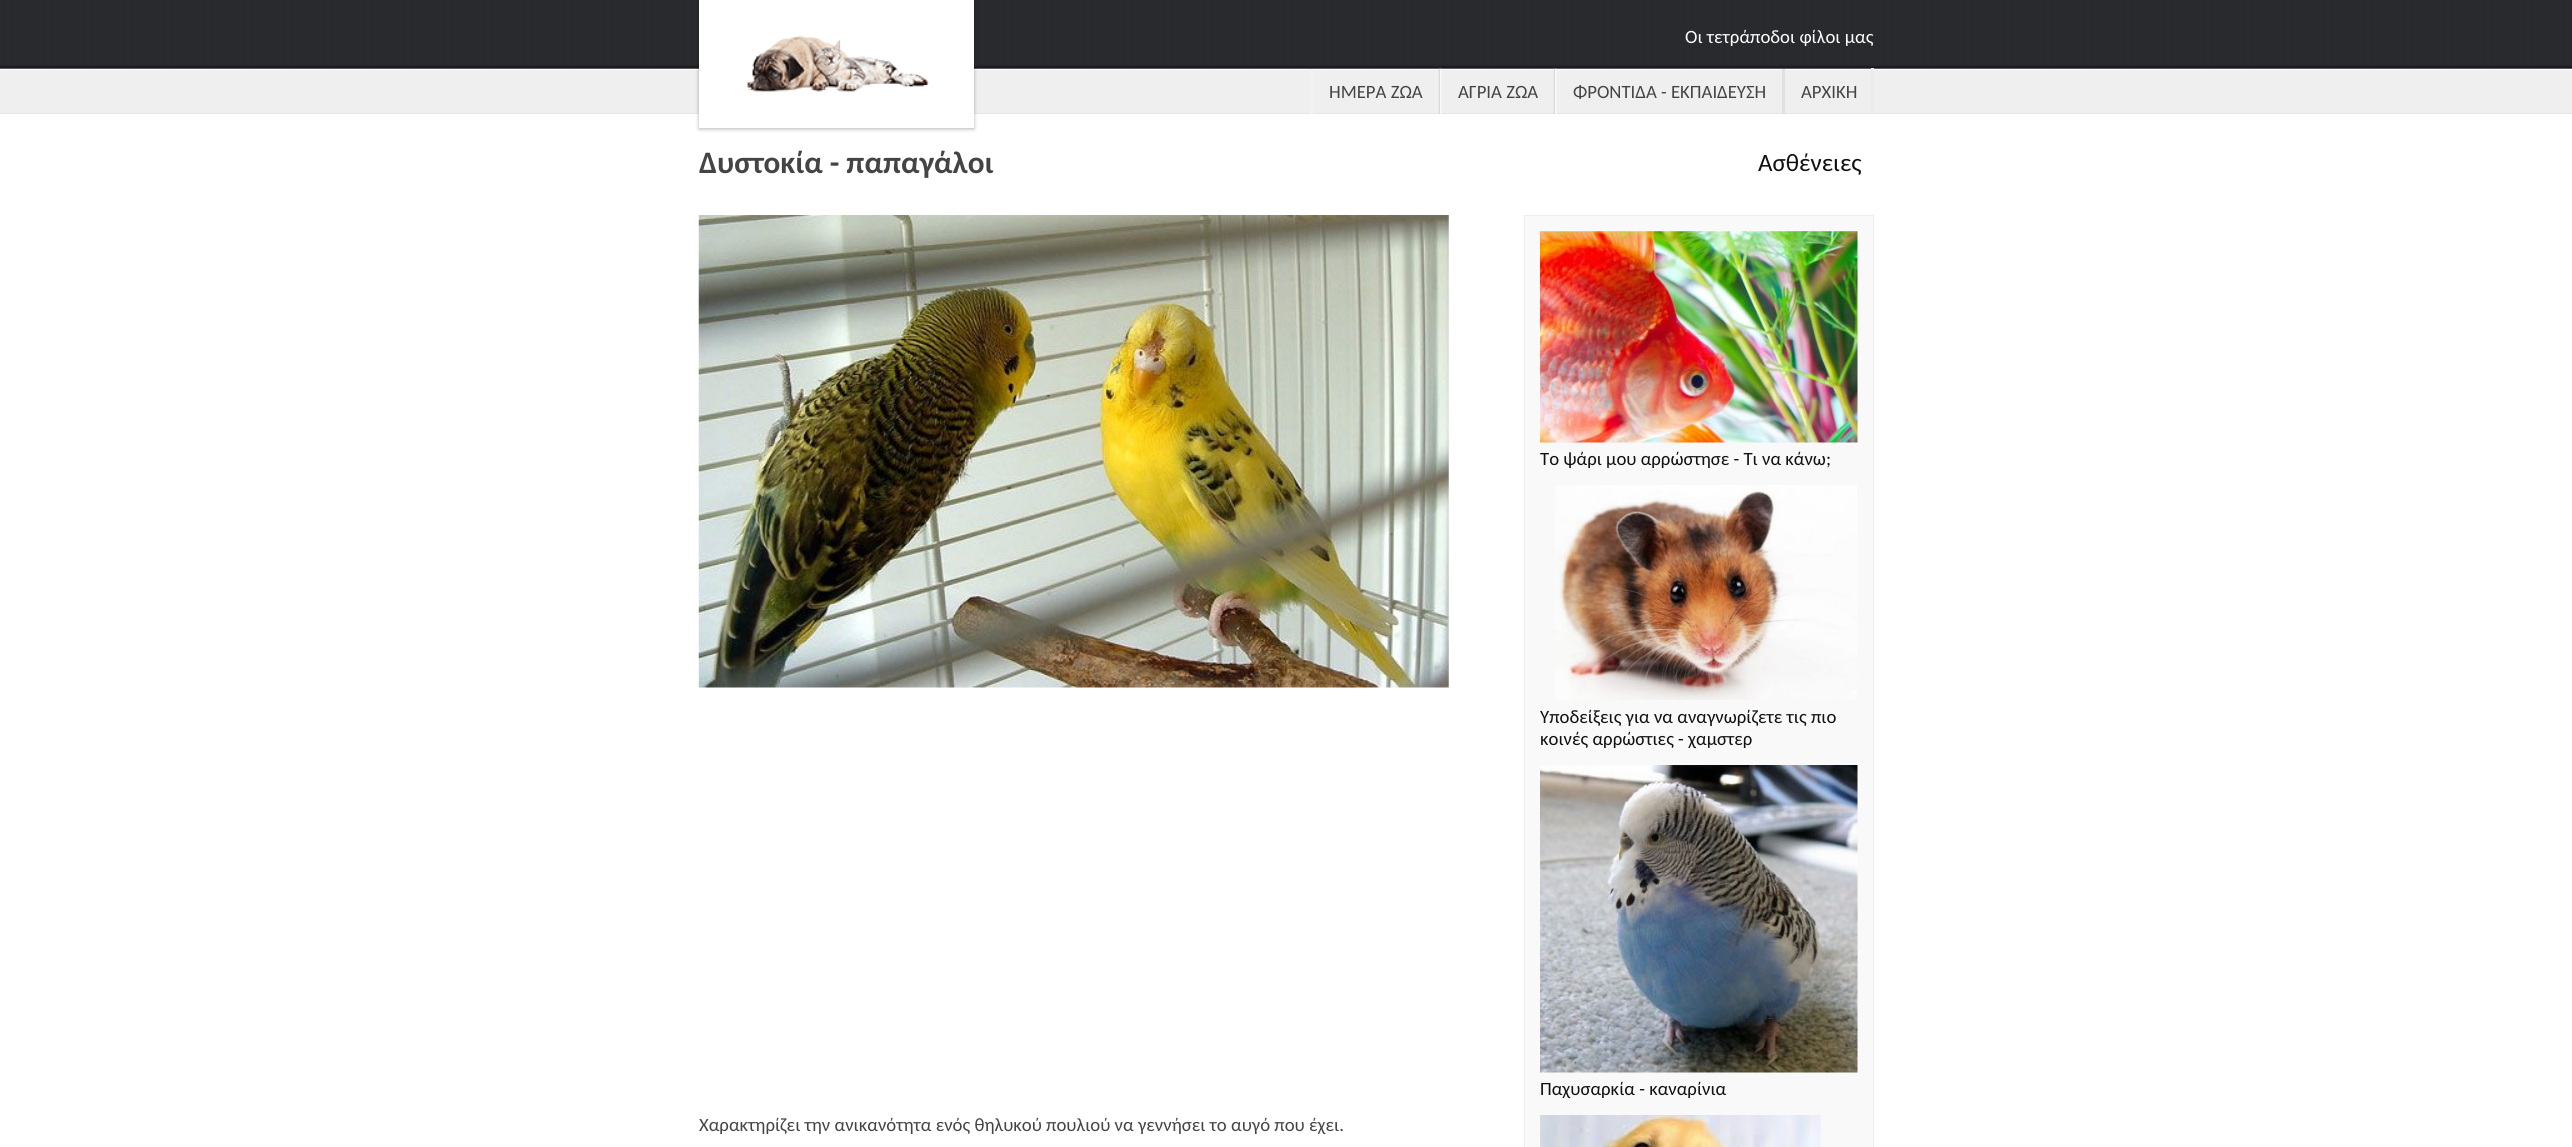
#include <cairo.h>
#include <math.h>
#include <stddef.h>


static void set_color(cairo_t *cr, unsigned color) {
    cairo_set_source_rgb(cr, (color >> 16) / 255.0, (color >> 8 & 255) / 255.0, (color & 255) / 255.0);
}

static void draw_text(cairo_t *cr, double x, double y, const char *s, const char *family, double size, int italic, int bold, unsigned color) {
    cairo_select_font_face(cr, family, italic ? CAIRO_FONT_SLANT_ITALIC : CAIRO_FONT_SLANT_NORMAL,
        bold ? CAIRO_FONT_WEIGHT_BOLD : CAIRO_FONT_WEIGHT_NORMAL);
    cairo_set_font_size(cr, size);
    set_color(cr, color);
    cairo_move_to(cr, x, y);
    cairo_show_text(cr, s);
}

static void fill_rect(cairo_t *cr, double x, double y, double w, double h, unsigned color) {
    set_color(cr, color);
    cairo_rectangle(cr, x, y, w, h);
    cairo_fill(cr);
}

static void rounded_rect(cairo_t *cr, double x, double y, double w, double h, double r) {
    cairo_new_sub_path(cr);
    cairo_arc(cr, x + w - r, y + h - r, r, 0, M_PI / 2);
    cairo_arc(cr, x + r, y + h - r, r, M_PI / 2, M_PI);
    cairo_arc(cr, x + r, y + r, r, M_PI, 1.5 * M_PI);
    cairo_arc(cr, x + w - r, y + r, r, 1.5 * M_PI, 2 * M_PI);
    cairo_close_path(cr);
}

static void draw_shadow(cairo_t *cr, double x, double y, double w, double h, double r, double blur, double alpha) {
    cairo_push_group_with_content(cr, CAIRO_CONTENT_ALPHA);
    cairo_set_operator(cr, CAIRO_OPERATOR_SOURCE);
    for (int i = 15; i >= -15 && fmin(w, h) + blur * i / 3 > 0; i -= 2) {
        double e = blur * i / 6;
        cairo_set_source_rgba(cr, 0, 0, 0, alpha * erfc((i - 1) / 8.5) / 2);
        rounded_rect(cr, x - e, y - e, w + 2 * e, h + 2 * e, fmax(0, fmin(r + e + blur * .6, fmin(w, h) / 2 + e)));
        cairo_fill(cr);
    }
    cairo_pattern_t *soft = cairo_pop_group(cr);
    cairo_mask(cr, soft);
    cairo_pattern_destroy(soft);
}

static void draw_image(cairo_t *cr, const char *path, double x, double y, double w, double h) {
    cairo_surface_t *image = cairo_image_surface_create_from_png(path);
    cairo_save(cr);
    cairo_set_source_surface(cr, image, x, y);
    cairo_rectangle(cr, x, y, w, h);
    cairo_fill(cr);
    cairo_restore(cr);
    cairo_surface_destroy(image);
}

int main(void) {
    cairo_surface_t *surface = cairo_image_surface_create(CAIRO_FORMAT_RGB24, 2572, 1147);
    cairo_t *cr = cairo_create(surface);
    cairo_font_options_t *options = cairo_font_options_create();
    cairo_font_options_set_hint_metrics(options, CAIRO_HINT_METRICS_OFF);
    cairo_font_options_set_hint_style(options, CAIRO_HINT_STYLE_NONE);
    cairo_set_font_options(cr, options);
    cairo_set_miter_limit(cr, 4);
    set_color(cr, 0xFFFFFF);
    cairo_paint(cr);
    fill_rect(cr, 0, 70, 2572, 43, 0xEFEFEF);
    draw_image(cr, "assets/img1.png", 0, 0, 2572, 70);
    fill_rect(cr, 0, 113, 2572, 1, 0xE6E6E6);
    set_color(cr, 0x000000);
    draw_shadow(cr, 699, 1, 275, 128, 0, 2, 0.3);
    fill_rect(cr, 699, 0, 275, 128, 0xFFFFFF);
    draw_image(cr, "assets/img2.png", 747, 36, 182, 56);
    draw_text(cr, 1685, 43, "Οι τετράποδοι φίλοι μας", "Carlito", 18.75, 0, 0, 0xFFFFFF);
    fill_rect(cr, 1871, 68, 3, 46, 0xEBEBEB);
    fill_rect(cr, 1310, 69, 3, 45, 0xF2F2F2);
    draw_text(cr, 1329, 98, "ΗΜΕΡΑ ΖΩΑ", "Carlito", 18.75, 0, 0, 0x444444);
    draw_image(cr, "assets/img3.png", 1438, 68, 4, 46);
    draw_text(cr, 1458, 98, "ΑΓΡΙΑ ΖΩΑ", "Carlito", 18.75, 0, 0, 0x444444);
    draw_image(cr, "assets/img3.png", 1553, 68, 4, 46);
    draw_text(cr, 1573, 98, "ΦΡΟΝΤΙΔΑ - ΕΚΠΑΙΔΕΥΣΗ", "Carlito", 18.75, 0, 0, 0x444444);
    fill_rect(cr, 1782, 69, 3, 45, 0xE1E1E1);
    draw_text(cr, 1801, 98, "ΑΡΧΙΚΗ", "Carlito", 18.75, 0, 0, 0x444444);
    draw_text(cr, 699, 173, "Δυστοκία - παπαγάλοι", "Carlito", 31.25, 0, 1, 0x444444);
    draw_text(cr, 1758, 171, "Ασθένειες", "Carlito", 25, 0, 0, 0x111111);
    set_color(cr, 0xF9F9F9);
    cairo_rectangle(cr, 1524.5, 215.5, 349, 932);
    cairo_fill_preserve(cr);
    set_color(cr, 0xEDEDED);
    cairo_set_line_width(cr, 1);
    cairo_stroke(cr);
    draw_image(cr, "assets/img4.png", 1540, 231, 318, 212);
    draw_text(cr, 1540, 465, "Το ψάρι μου αρρώστησε - Τι να κάνω;", "Carlito", 18.75, 0, 0, 0x111111);
    draw_image(cr, "assets/img5.png", 1555, 485, 302, 215);
    draw_text(cr, 1540, 723, "Υποδείξεις για να αναγνωρίζετε τις πιο", "Carlito", 18.75, 0, 0, 0x111111);
    draw_text(cr, 1540, 745, "κοινές αρρώστιες - χαμστερ", "Carlito", 18.75, 0, 0, 0x111111);
    draw_image(cr, "assets/img6.png", 1540, 765, 318, 308);
    draw_text(cr, 1540, 1095, "Παχυσαρκία - καναρίνια", "Carlito", 18.75, 0, 0, 0x111111);
    draw_image(cr, "assets/img7.png", 1540, 1115, 281, 32);
    draw_image(cr, "assets/img8.png", 698, 215, 751, 473);
    draw_text(cr, 699, 1131, "Χαρακτηρίζει την ανικανότητα ενός θηλυκού πουλιού να γεννήσει το αυγό που έχει.", "Carlito", 18.75, 0, 0, 0x444444);
    cairo_surface_write_to_png(surface, "output.png");
    cairo_font_options_destroy(options);
    cairo_destroy(cr);
    cairo_surface_destroy(surface);
    return 0;
}
